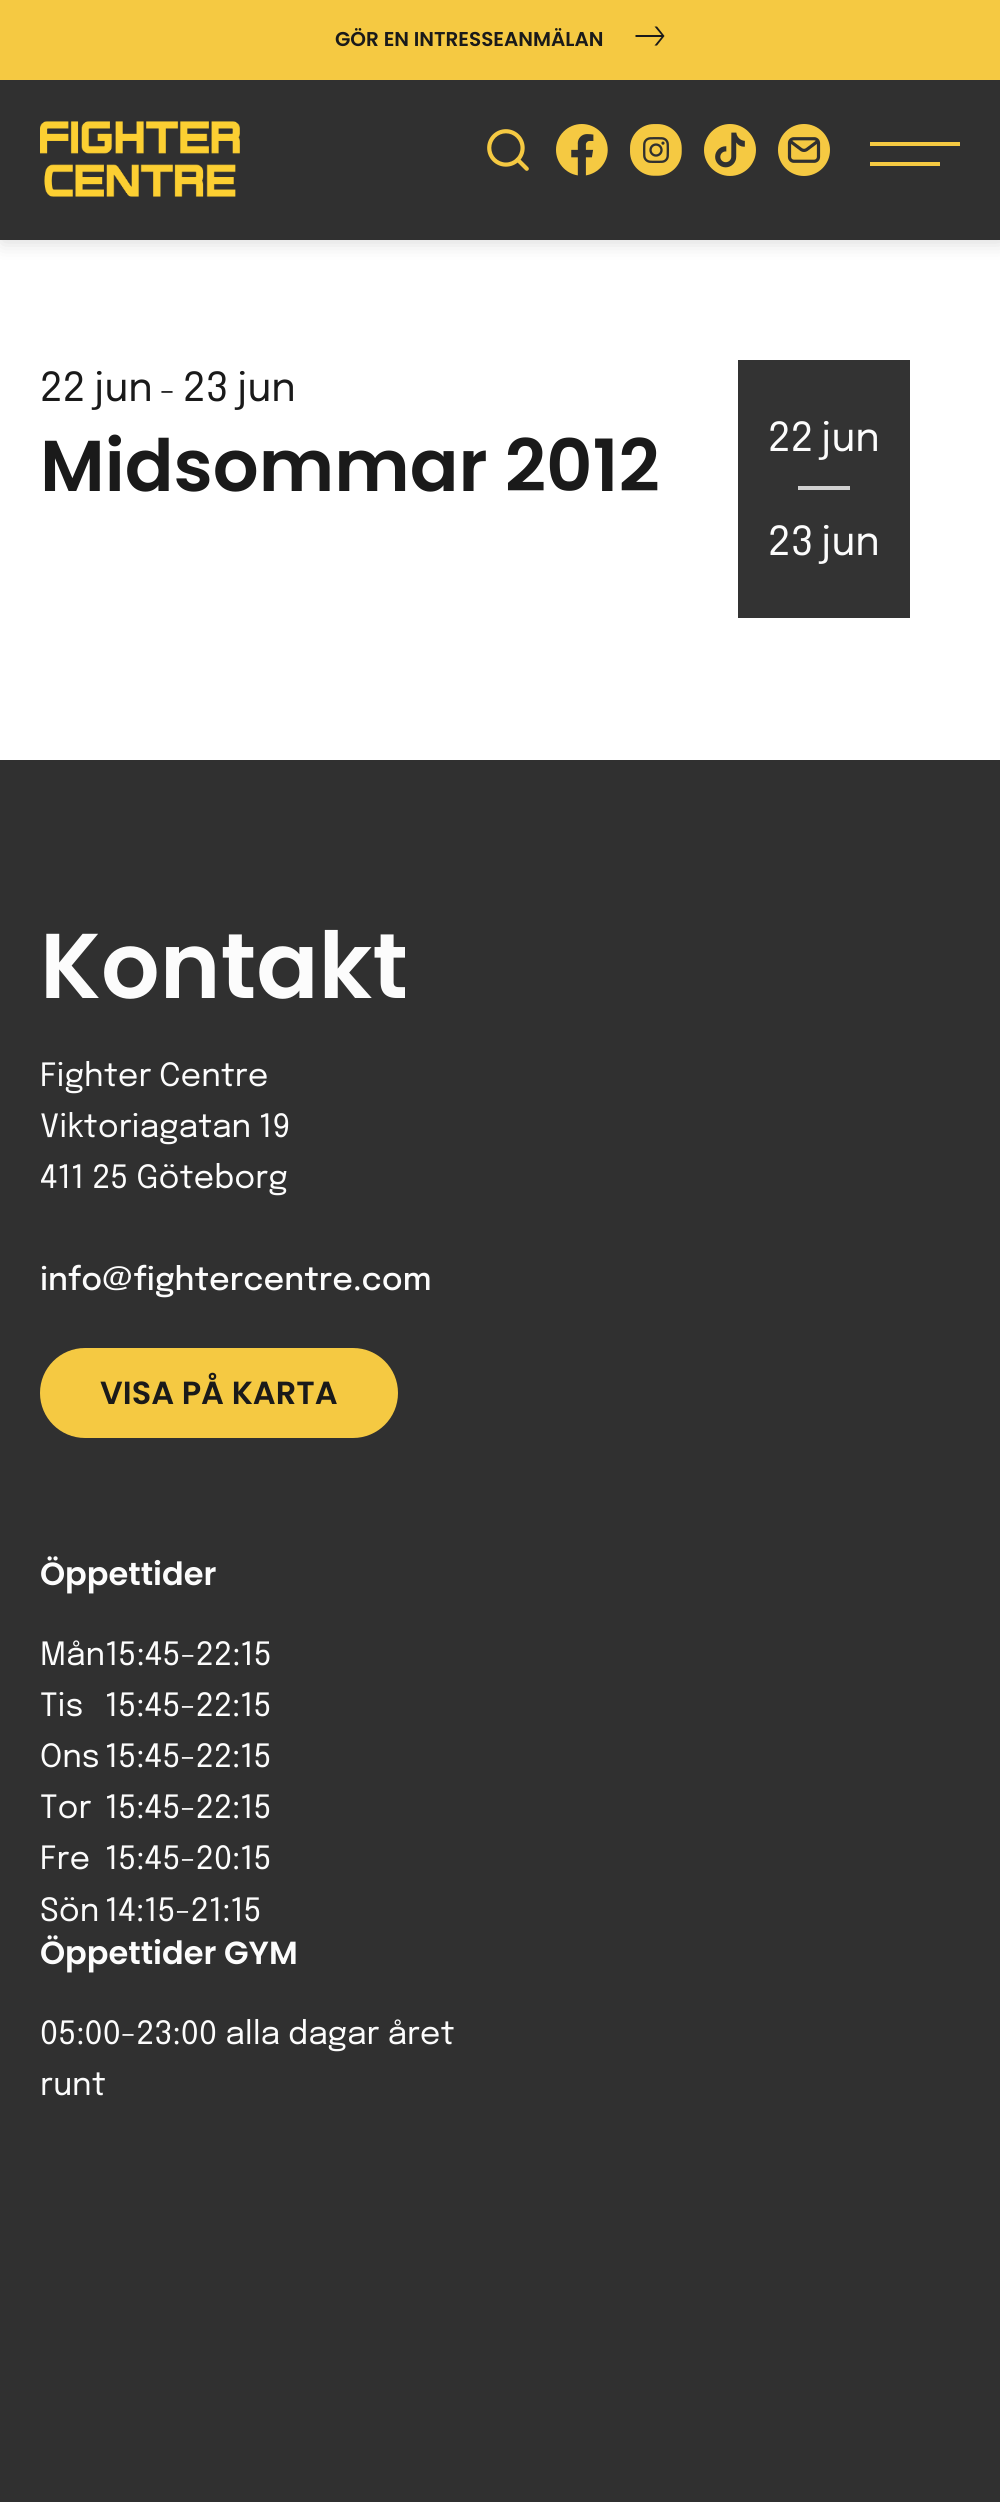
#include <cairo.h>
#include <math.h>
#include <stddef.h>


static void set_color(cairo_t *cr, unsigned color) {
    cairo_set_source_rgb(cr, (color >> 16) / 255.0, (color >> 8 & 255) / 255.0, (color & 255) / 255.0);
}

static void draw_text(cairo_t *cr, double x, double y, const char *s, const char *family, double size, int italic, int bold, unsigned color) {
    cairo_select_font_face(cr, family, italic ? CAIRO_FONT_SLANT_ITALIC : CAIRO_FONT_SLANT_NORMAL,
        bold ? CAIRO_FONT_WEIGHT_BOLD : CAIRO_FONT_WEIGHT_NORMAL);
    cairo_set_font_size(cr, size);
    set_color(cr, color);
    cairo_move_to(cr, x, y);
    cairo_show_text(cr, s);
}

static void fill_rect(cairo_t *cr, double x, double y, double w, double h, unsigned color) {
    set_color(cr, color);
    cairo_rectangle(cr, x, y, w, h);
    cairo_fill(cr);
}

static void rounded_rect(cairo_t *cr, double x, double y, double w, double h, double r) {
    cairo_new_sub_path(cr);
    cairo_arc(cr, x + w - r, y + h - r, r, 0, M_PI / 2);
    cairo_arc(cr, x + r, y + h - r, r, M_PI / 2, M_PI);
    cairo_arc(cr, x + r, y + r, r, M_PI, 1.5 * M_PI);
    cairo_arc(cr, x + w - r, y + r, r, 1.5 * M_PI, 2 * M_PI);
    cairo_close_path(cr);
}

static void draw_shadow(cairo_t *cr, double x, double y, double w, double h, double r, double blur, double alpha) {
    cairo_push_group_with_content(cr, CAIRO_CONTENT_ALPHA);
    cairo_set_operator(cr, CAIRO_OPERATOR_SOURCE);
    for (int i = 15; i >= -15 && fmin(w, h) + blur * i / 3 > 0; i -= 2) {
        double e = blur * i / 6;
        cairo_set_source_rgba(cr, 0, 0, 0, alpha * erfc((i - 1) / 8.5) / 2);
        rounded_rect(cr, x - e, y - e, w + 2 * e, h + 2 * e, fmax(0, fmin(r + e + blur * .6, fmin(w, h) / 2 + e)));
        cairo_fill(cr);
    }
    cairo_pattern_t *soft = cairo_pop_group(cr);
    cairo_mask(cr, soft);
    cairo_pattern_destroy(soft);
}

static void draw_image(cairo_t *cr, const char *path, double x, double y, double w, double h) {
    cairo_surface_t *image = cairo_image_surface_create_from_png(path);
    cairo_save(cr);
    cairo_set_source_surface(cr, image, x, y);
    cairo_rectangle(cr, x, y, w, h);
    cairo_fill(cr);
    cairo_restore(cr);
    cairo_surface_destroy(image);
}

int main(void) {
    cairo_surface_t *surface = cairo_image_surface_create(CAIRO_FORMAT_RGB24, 1000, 2502);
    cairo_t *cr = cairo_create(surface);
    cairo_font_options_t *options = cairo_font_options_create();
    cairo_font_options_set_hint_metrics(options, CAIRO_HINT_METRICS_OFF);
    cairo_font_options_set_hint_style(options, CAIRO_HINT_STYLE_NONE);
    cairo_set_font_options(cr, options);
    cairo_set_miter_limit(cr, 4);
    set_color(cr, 0xFFFFFF);
    cairo_paint(cr);
    set_color(cr, 0x000000);
    draw_shadow(cr, 2, 2, 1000, 240, 0, 10, 0.15);
    fill_rect(cr, 0, 80, 1000, 160, 0x303030);
    fill_rect(cr, 0, 0, 1000, 80, 0xF5C942);
    draw_text(cr, 335, 46, "GÖR EN INTRESSEANMÄLAN", "Poppins SemiBold", 20, 0, 0, 0x1A1A1A);
    cairo_new_path(cr);
    cairo_move_to(cr, 654.5, 45.5);
    cairo_line_to(cr, 657, 45.5);
    cairo_line_to(cr, 664.5, 36);
    cairo_line_to(cr, 657, 26.5);
    cairo_line_to(cr, 654.5, 26.5);
    cairo_line_to(cr, 661.5, 35);
    cairo_line_to(cr, 635.5, 35);
    cairo_line_to(cr, 635.5, 37);
    cairo_line_to(cr, 661.5, 37);
    cairo_close_path(cr);
    cairo_fill(cr);
    draw_image(cr, "assets/img1.png", 40, 121, 200, 76);
    draw_image(cr, "assets/img2.png", 487, 129, 42, 42);
    draw_image(cr, "assets/img3.png", 556, 124, 52, 52);
    draw_image(cr, "assets/img4.png", 630, 124, 52, 52);
    draw_image(cr, "assets/img5.png", 704, 124, 52, 52);
    draw_image(cr, "assets/img6.png", 778, 124, 52, 52);
    fill_rect(cr, 870, 142, 90, 4, 0xF5C942);
    fill_rect(cr, 870, 162, 70, 4, 0xF5C942);
    draw_text(cr, 40, 401, "22", "Epilogue", 40, 0, 0, 0x1A1A1A);
    draw_text(cr, 94, 401, "jun", "Epilogue", 40, 0, 0, 0x1A1A1A);
    draw_text(cr, 160, 401, "-", "Epilogue", 32, 0, 0, 0x1A1A1A);
    draw_text(cr, 183, 401, "23", "Epilogue", 40, 0, 0, 0x1A1A1A);
    draw_text(cr, 237, 401, "jun", "Epilogue", 40, 0, 0, 0x1A1A1A);
    draw_text(cr, 40, 491, "Midsommar 2012", "Poppins SemiBold", 72, 0, 0, 0x1A1A1A);
    fill_rect(cr, 738, 360, 172, 258, 0x333333);
    draw_text(cr, 768, 451, "22", "Epilogue", 40, 0, 0, 0xFCFCFC);
    draw_text(cr, 821, 451, "jun", "Epilogue", 40, 0, 0, 0xFCFCFC);
    fill_rect(cr, 798, 486, 52, 4, 0xD1D1D1);
    draw_text(cr, 768, 555, "23", "Epilogue", 40, 0, 0, 0xFCFCFC);
    draw_text(cr, 821, 555, "jun", "Epilogue", 40, 0, 0, 0xFCFCFC);
    fill_rect(cr, 0, 760, 1000, 1742, 0x303030);
    draw_text(cr, 40, 998, "Kontakt", "Poppins SemiBold", 92, 0, 0, 0xFCFCFC);
    draw_text(cr, 40, 1086, "Fighter Centre", "Epilogue", 32, 0, 0, 0xFCFCFC);
    draw_text(cr, 40, 1137, "Viktoriagatan 19", "Epilogue", 32, 0, 0, 0xFCFCFC);
    draw_text(cr, 40, 1188, "411 25 Göteborg", "Epilogue", 32, 0, 0, 0xFCFCFC);
    draw_text(cr, 40, 1290, "info@fightercentre.com", "Epilogue Medium", 32, 0, 0, 0xFCFCFC);
    set_color(cr, 0xF5C942);
    rounded_rect(cr, 40, 1348, 358, 90, 45);
    cairo_fill(cr);
    draw_text(cr, 100, 1404, "VISA PÅ KARTA", "Poppins SemiBold", 32, 0, 0, 0x1A1A1A);
    draw_text(cr, 40, 1585, "Öppettider", "Poppins SemiBold", 32, 0, 0, 0xFCFCFC);
    draw_text(cr, 40, 1665, "Mån15:45-22:15", "Epilogue", 32, 0, 0, 0xFCFCFC);
    draw_text(cr, 40, 1716, "Tis", "Epilogue", 32, 0, 0, 0xFCFCFC);
    draw_text(cr, 105, 1716, "15:45-22:15", "Epilogue", 32, 0, 0, 0xFCFCFC);
    draw_text(cr, 40, 1767, "Ons", "Epilogue", 32, 0, 0, 0xFCFCFC);
    draw_text(cr, 105, 1767, "15:45-22:15", "Epilogue", 32, 0, 0, 0xFCFCFC);
    draw_text(cr, 40, 1818, "Tor", "Epilogue", 32, 0, 0, 0xFCFCFC);
    draw_text(cr, 105, 1818, "15:45-22:15", "Epilogue", 32, 0, 0, 0xFCFCFC);
    draw_text(cr, 40, 1869, "Fre", "Epilogue", 32, 0, 0, 0xFCFCFC);
    draw_text(cr, 105, 1869, "15:45-20:15", "Epilogue", 32, 0, 0, 0xFCFCFC);
    draw_text(cr, 40, 1921, "Sön", "Epilogue", 32, 0, 0, 0xFCFCFC);
    draw_text(cr, 105, 1921, "14:15-21:15", "Epilogue", 32, 0, 0, 0xFCFCFC);
    draw_text(cr, 40, 1964, "Öppettider GYM", "Poppins SemiBold", 32, 0, 0, 0xFCFCFC);
    draw_text(cr, 40, 2044, "05:00-23:00 alla dagar året", "Epilogue", 32, 0, 0, 0xFCFCFC);
    draw_text(cr, 40, 2095, "runt", "Epilogue", 32, 0, 0, 0xFCFCFC);
    cairo_surface_write_to_png(surface, "output.png");
    cairo_font_options_destroy(options);
    cairo_destroy(cr);
    cairo_surface_destroy(surface);
    return 0;
}
